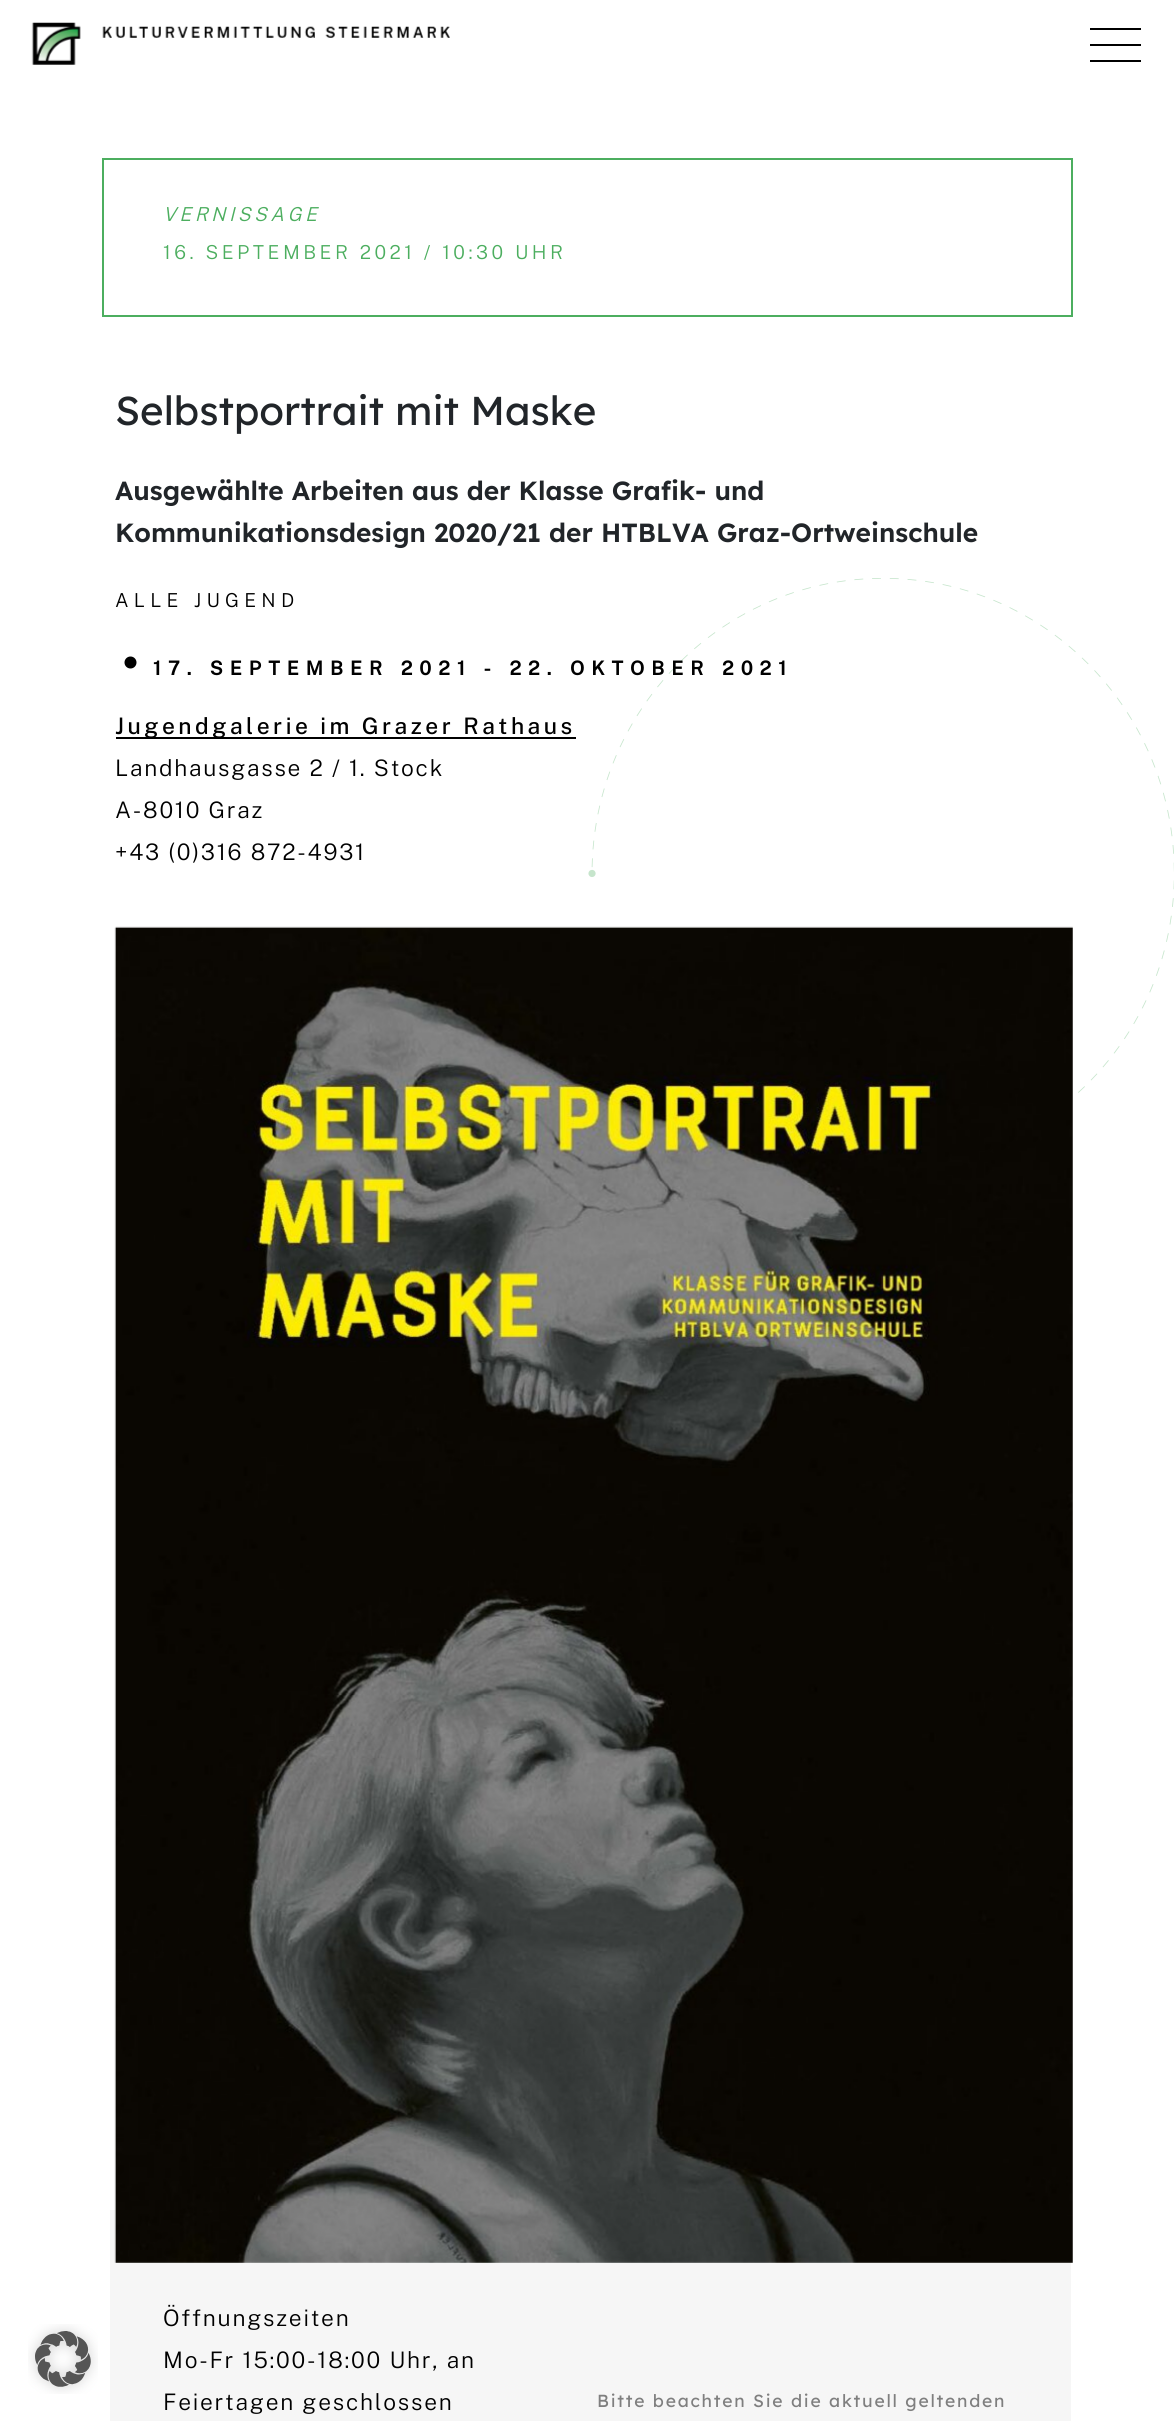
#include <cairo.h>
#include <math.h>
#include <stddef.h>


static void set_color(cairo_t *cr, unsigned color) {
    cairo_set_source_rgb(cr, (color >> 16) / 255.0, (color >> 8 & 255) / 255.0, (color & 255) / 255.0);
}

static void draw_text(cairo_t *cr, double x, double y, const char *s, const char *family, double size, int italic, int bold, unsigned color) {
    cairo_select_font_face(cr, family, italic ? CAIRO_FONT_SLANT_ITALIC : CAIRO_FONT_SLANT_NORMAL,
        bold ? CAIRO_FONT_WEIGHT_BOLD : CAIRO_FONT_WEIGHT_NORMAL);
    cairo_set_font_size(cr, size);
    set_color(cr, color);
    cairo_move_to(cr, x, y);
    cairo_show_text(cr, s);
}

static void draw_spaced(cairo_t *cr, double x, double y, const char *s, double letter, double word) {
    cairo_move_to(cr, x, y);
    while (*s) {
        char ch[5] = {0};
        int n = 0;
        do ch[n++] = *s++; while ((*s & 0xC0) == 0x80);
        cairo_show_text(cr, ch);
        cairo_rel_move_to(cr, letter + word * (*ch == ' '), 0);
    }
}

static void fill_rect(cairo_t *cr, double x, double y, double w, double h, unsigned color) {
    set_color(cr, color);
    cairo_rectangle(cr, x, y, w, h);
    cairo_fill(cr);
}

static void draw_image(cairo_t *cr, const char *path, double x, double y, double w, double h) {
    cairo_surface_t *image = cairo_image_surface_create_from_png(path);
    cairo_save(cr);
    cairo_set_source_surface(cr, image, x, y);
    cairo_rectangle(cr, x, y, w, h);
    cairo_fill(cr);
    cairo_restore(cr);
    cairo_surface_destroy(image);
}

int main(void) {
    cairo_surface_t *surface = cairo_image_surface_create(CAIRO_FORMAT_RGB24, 1174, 2421);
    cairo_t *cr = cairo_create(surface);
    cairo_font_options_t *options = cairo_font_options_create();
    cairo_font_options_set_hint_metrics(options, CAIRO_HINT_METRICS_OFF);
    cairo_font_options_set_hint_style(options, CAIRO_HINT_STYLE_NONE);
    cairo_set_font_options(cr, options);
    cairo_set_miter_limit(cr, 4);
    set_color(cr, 0xFFFFFF);
    cairo_paint(cr);
    draw_image(cr, "assets/img1.png", 31, 22, 419, 43);
    fill_rect(cr, 1090, 28, 51, 2, 0x000000);
    fill_rect(cr, 1090, 44, 51, 2, 0x000000);
    fill_rect(cr, 1090, 60, 51, 2, 0x000000);
    draw_image(cr, "assets/img2.png", 28, 2324, 70, 70);
    draw_image(cr, "assets/img3.png", 588, 578, 586, 515);
    cairo_rectangle(cr, 103, 159, 969, 157);
    set_color(cr, 0x4CAE5F);
    cairo_stroke(cr);
    cairo_select_font_face(cr, "Public Sans Light", CAIRO_FONT_SLANT_ITALIC, CAIRO_FONT_WEIGHT_NORMAL);
    cairo_set_font_size(cr, 19.25);
    draw_spaced(cr, 163, 221, "VERNISSAGE", 3.5, 0);
    cairo_select_font_face(cr, "Public Sans Light", CAIRO_FONT_SLANT_NORMAL, CAIRO_FONT_WEIGHT_NORMAL);
    draw_spaced(cr, 163, 259, "16. SEPTEMBER 2021 / 10:30 UHR", 3.5, 0);
    draw_text(cr, 115, 425, "Selbstportrait mit Maske", "Lexend", 40.25, 0, 0, 0x212529);
    draw_text(cr, 115, 500, "Ausgewählte Arbeiten aus der Klasse Grafik- und", "Lexend SemiBold", 26.25, 0, 0, 0x212529);
    draw_text(cr, 115, 542, "Kommunikationsdesign 2020/21 der HTBLVA Graz-Ortweinschule", "Lexend SemiBold", 26.25, 0, 0, 0x212529);
    cairo_select_font_face(cr, "Public Sans Light", CAIRO_FONT_SLANT_NORMAL, CAIRO_FONT_WEIGHT_NORMAL);
    cairo_set_font_size(cr, 19.25);
    set_color(cr, 0x000000);
    draw_spaced(cr, 115, 607, "ALLE JUGEND", 5.25, 0);
    cairo_new_path(cr);
    cairo_arc(cr, 130.5, 662.5, 6, 0, 2 * M_PI);
    cairo_fill(cr);
    cairo_select_font_face(cr, "Public Sans", CAIRO_FONT_SLANT_NORMAL, CAIRO_FONT_WEIGHT_BOLD);
    draw_spaced(cr, 153, 675, "17. SEPTEMBER 2021 - 22. OKTOBER 2021", 7, 0);
    fill_rect(cr, 116, 737, 460, 2, 0x000000);
    cairo_select_font_face(cr, "Public Sans Medium", CAIRO_FONT_SLANT_NORMAL, CAIRO_FONT_WEIGHT_NORMAL);
    cairo_set_font_size(cr, 22.75);
    draw_spaced(cr, 115, 734, "Jugendgalerie im Grazer Rathaus", 3.5, 0);
    cairo_select_font_face(cr, "Public Sans Light", CAIRO_FONT_SLANT_NORMAL, CAIRO_FONT_WEIGHT_NORMAL);
    draw_spaced(cr, 115, 776, "Landhausgasse 2 / 1. Stock", 1.75, 0);
    draw_spaced(cr, 115, 818, "A-8010 Graz", 1.75, 0);
    draw_spaced(cr, 115, 860, "+43 (0)316 872-4931", 1.75, 0);
    fill_rect(cr, 110, 2210, 961, 211, 0xF6F6F6);
    draw_image(cr, "assets/img4.png", 114, 926, 959, 1337);
    set_color(cr, 0x000000);
    draw_spaced(cr, 163, 2326, "Öffnungszeiten", 1.75, 0);
    draw_spaced(cr, 163, 2368, "Mo-Fr 15:00-18:00 Uhr, an", 1.75, 0);
    draw_spaced(cr, 163, 2410, "Feiertagen geschlossen", 1.75, 0);
    cairo_select_font_face(cr, "Lexend", CAIRO_FONT_SLANT_NORMAL, CAIRO_FONT_WEIGHT_NORMAL);
    cairo_set_font_size(cr, 17.5);
    set_color(cr, 0x7F7F7F);
    draw_spaced(cr, 597, 2407, "Bitte beachten Sie die aktuell geltenden", 1.75, 0);
    cairo_surface_write_to_png(surface, "output.png");
    cairo_font_options_destroy(options);
    cairo_destroy(cr);
    cairo_surface_destroy(surface);
    return 0;
}
